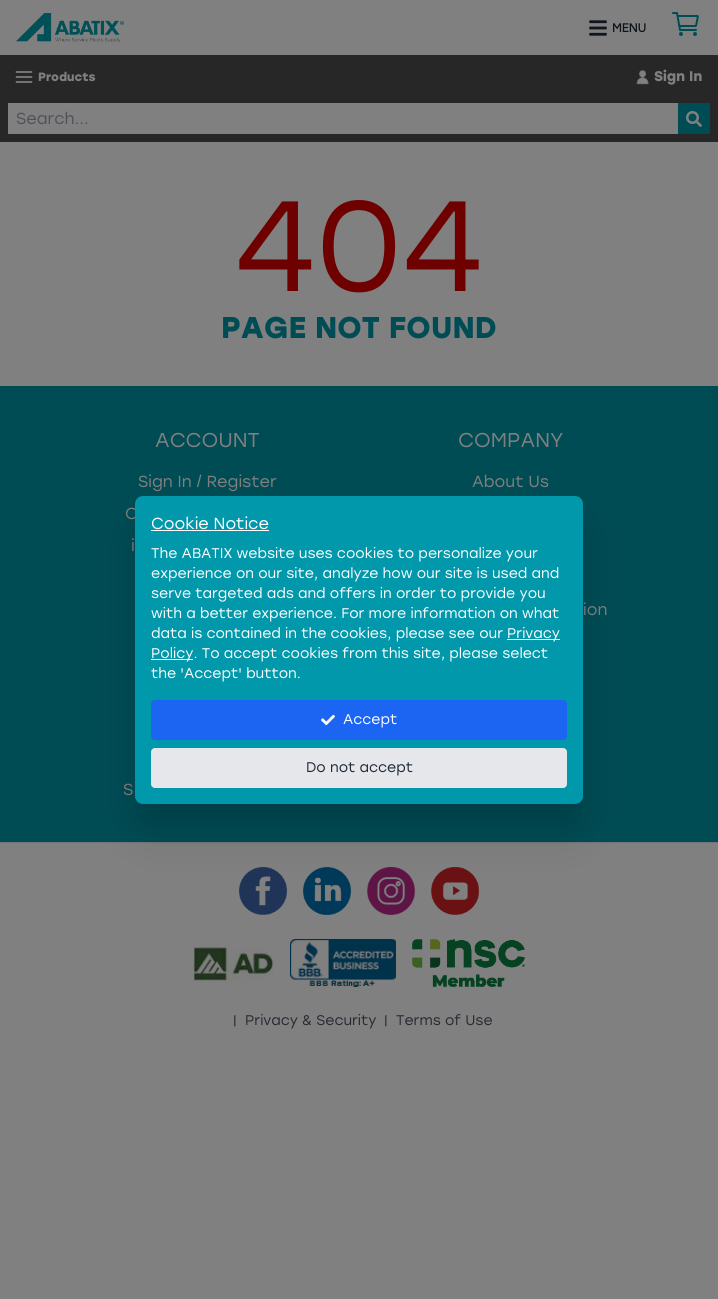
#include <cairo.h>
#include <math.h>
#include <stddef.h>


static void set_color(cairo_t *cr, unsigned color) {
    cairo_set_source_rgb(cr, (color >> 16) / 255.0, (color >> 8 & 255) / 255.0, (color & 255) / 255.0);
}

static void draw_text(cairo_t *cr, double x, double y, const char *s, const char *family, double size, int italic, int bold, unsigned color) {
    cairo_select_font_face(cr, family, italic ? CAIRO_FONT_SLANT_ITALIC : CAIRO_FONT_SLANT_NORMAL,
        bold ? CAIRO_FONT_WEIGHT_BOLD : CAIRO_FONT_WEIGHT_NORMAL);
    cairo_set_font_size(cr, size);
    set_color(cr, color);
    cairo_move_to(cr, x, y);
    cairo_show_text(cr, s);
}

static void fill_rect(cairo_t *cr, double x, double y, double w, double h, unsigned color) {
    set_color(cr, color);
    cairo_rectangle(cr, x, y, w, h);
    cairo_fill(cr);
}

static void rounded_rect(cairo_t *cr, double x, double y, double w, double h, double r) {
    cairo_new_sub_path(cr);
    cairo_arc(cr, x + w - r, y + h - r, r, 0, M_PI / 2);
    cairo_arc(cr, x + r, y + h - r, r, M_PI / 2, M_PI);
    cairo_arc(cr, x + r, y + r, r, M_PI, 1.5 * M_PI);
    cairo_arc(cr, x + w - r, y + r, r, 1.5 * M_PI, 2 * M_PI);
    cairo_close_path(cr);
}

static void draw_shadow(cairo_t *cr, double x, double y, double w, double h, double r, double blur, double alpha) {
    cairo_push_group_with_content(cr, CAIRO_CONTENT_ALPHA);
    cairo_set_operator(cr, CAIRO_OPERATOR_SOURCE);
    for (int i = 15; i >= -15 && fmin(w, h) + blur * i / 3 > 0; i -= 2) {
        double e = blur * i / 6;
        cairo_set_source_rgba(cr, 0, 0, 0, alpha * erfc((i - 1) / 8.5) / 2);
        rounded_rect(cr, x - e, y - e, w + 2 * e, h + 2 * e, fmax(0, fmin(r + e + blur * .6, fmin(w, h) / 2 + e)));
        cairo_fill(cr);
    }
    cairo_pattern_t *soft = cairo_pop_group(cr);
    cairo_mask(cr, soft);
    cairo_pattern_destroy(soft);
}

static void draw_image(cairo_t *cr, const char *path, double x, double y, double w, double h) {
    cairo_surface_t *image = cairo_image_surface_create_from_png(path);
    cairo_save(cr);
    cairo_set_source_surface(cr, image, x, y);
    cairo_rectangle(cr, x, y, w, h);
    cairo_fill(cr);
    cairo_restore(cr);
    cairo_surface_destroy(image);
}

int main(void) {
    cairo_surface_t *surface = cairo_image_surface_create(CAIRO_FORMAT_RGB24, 718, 1299);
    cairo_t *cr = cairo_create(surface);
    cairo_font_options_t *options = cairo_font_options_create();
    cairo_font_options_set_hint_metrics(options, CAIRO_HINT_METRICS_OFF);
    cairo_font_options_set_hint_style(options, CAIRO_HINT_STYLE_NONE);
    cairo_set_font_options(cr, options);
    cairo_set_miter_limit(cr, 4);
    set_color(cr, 0x808080);
    cairo_paint(cr);
    draw_image(cr, "assets/img1.png", 16, 13, 108, 29);
    draw_image(cr, "assets/img2.png", 589, 20, 18, 16);
    draw_text(cr, 612, 32, "MENU", "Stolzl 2", 12, 0, 1, 0x10151C);
    draw_image(cr, "assets/img3.png", 672, 12, 27, 24);
    fill_rect(cr, 0, 55, 718, 87, 0x272727);
    draw_image(cr, "assets/img4.png", 15, 71, 18, 12);
    draw_text(cr, 38, 81, "Products", "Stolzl", 12, 0, 1, 0x808080);
    draw_image(cr, "assets/img5.png", 636, 69, 13, 16);
    draw_text(cr, 654, 81, "Sign In", "Stolzl", 14, 0, 1, 0x808080);
    fill_rect(cr, 678, 103, 32, 31, 0x004C55);
    fill_rect(cr, 8, 103, 670, 31, 0x808080);
    draw_text(cr, 16, 124, "Search...", "Stolzl", 16, 0, 0, 0x4E5258);
    draw_image(cr, "assets/img6.png", 686, 111, 16, 16);
    draw_text(cr, 235, 291, "404", "Stolzl", 128, 0, 0, 0x6F0000);
    draw_text(cr, 221, 338, "PAGE NOT FOUND", "Stolzl", 30, 0, 1, 0x004C55);
    fill_rect(cr, 0, 386, 718, 456, 0x004C55);
    draw_text(cr, 155, 447, "ACCOUNT", "Stolzl", 20, 0, 0, 0x808080);
    draw_text(cr, 138, 487, "Sign In / Register", "Stolzl", 16, 0, 0, 0x808080);
    draw_text(cr, 125, 519, "O", "Stolzl", 16, 0, 0, 0x808080);
    draw_text(cr, 131, 551, "i", "Stolzl", 16, 0, 0, 0x808080);
    draw_text(cr, 458, 447, "COMPANY", "Stolzl", 20, 0, 0, 0x808080);
    draw_text(cr, 472, 487, "About Us", "Stolzl", 16, 0, 0, 0x808080);
    draw_text(cr, 583, 615, "ion", "Stolzl", 16, 0, 0, 0x808080);
    draw_text(cr, 123, 795, "S", "Stolzl", 16, 0, 0, 0x808080);
    fill_rect(cr, 0, 842, 718, 1, 0x737476);
    draw_image(cr, "assets/img7.png", 239, 867, 48, 48);
    draw_image(cr, "assets/img8.png", 303, 867, 48, 48);
    draw_image(cr, "assets/img9.png", 367, 867, 48, 48);
    draw_image(cr, "assets/img10.png", 431, 867, 48, 48);
    draw_image(cr, "assets/img11.png", 193, 947, 81, 35);
    draw_image(cr, "assets/img12.png", 290, 939, 106, 48);
    draw_image(cr, "assets/img13.png", 412, 939, 113, 48);
    draw_text(cr, 233, 1025, "|", "Stolzl", 14, 0, 0, 0x262B32);
    draw_text(cr, 245, 1025, "Privacy & Security", "Stolzl", 14, 0, 0, 0x262B32);
    draw_text(cr, 384, 1025, "|", "Stolzl", 14, 0, 0, 0x262B32);
    draw_text(cr, 396, 1025, "Terms of Use", "Stolzl", 14, 0, 0, 0x262B32);
    set_color(cr, 0x000000);
    draw_shadow(cr, 147, 533, 424, 284, 0, 25, 0.25);
    set_color(cr, 0x0098AA);
    rounded_rect(cr, 135, 496, 448, 308, 8);
    cairo_fill(cr);
    draw_text(cr, 151, 529, "Cookie Notice", "Stolzl", 16, 0, 0, 0xFFFFFF);
    fill_rect(cr, 151, 530, 118, 1, 0xFFFFFF);
    draw_text(cr, 151, 558, "The ABATIX website uses cookies to personalize your", "Stolzl", 14, 0, 0, 0xFFFFFF);
    draw_text(cr, 151, 578, "experience on our site, analyze how our site is used and", "Stolzl", 14, 0, 0, 0xFFFFFF);
    draw_text(cr, 151, 598, "serve targeted ads and offers in order to provide you", "Stolzl", 14, 0, 0, 0xFFFFFF);
    draw_text(cr, 151, 618, "with a better experience. For more information on what", "Stolzl", 14, 0, 0, 0xFFFFFF);
    draw_text(cr, 151, 638, "data is contained in the cookies, please see our", "Stolzl", 14, 0, 0, 0xFFFFFF);
    fill_rect(cr, 507, 639, 53, 1, 0xFFFFFF);
    draw_text(cr, 507, 638, "Privacy", "Stolzl", 14, 0, 0, 0xFFFFFF);
    fill_rect(cr, 151, 659, 42, 1, 0xFFFFFF);
    draw_text(cr, 151, 658, "Policy. To accept cookies from this site, please select", "Stolzl", 14, 0, 0, 0xFFFFFF);
    draw_text(cr, 151, 678, "the 'Accept' button.", "Stolzl", 14, 0, 0, 0xFFFFFF);
    set_color(cr, 0x1C64F2);
    rounded_rect(cr, 151, 700, 416, 40, 4);
    cairo_fill(cr);
    draw_image(cr, "assets/img14.png", 321, 714, 14, 12);
    draw_text(cr, 343, 724, "Accept", "Stolzl", 14, 0, 0, 0xFFFFFF);
    set_color(cr, 0xE5E7EB);
    rounded_rect(cr, 151, 748, 416, 40, 4);
    cairo_fill(cr);
    draw_text(cr, 306, 772, "Do not accept", "Stolzl", 14, 0, 0, 0x1F2937);
    cairo_surface_write_to_png(surface, "output.png");
    cairo_font_options_destroy(options);
    cairo_destroy(cr);
    cairo_surface_destroy(surface);
    return 0;
}
